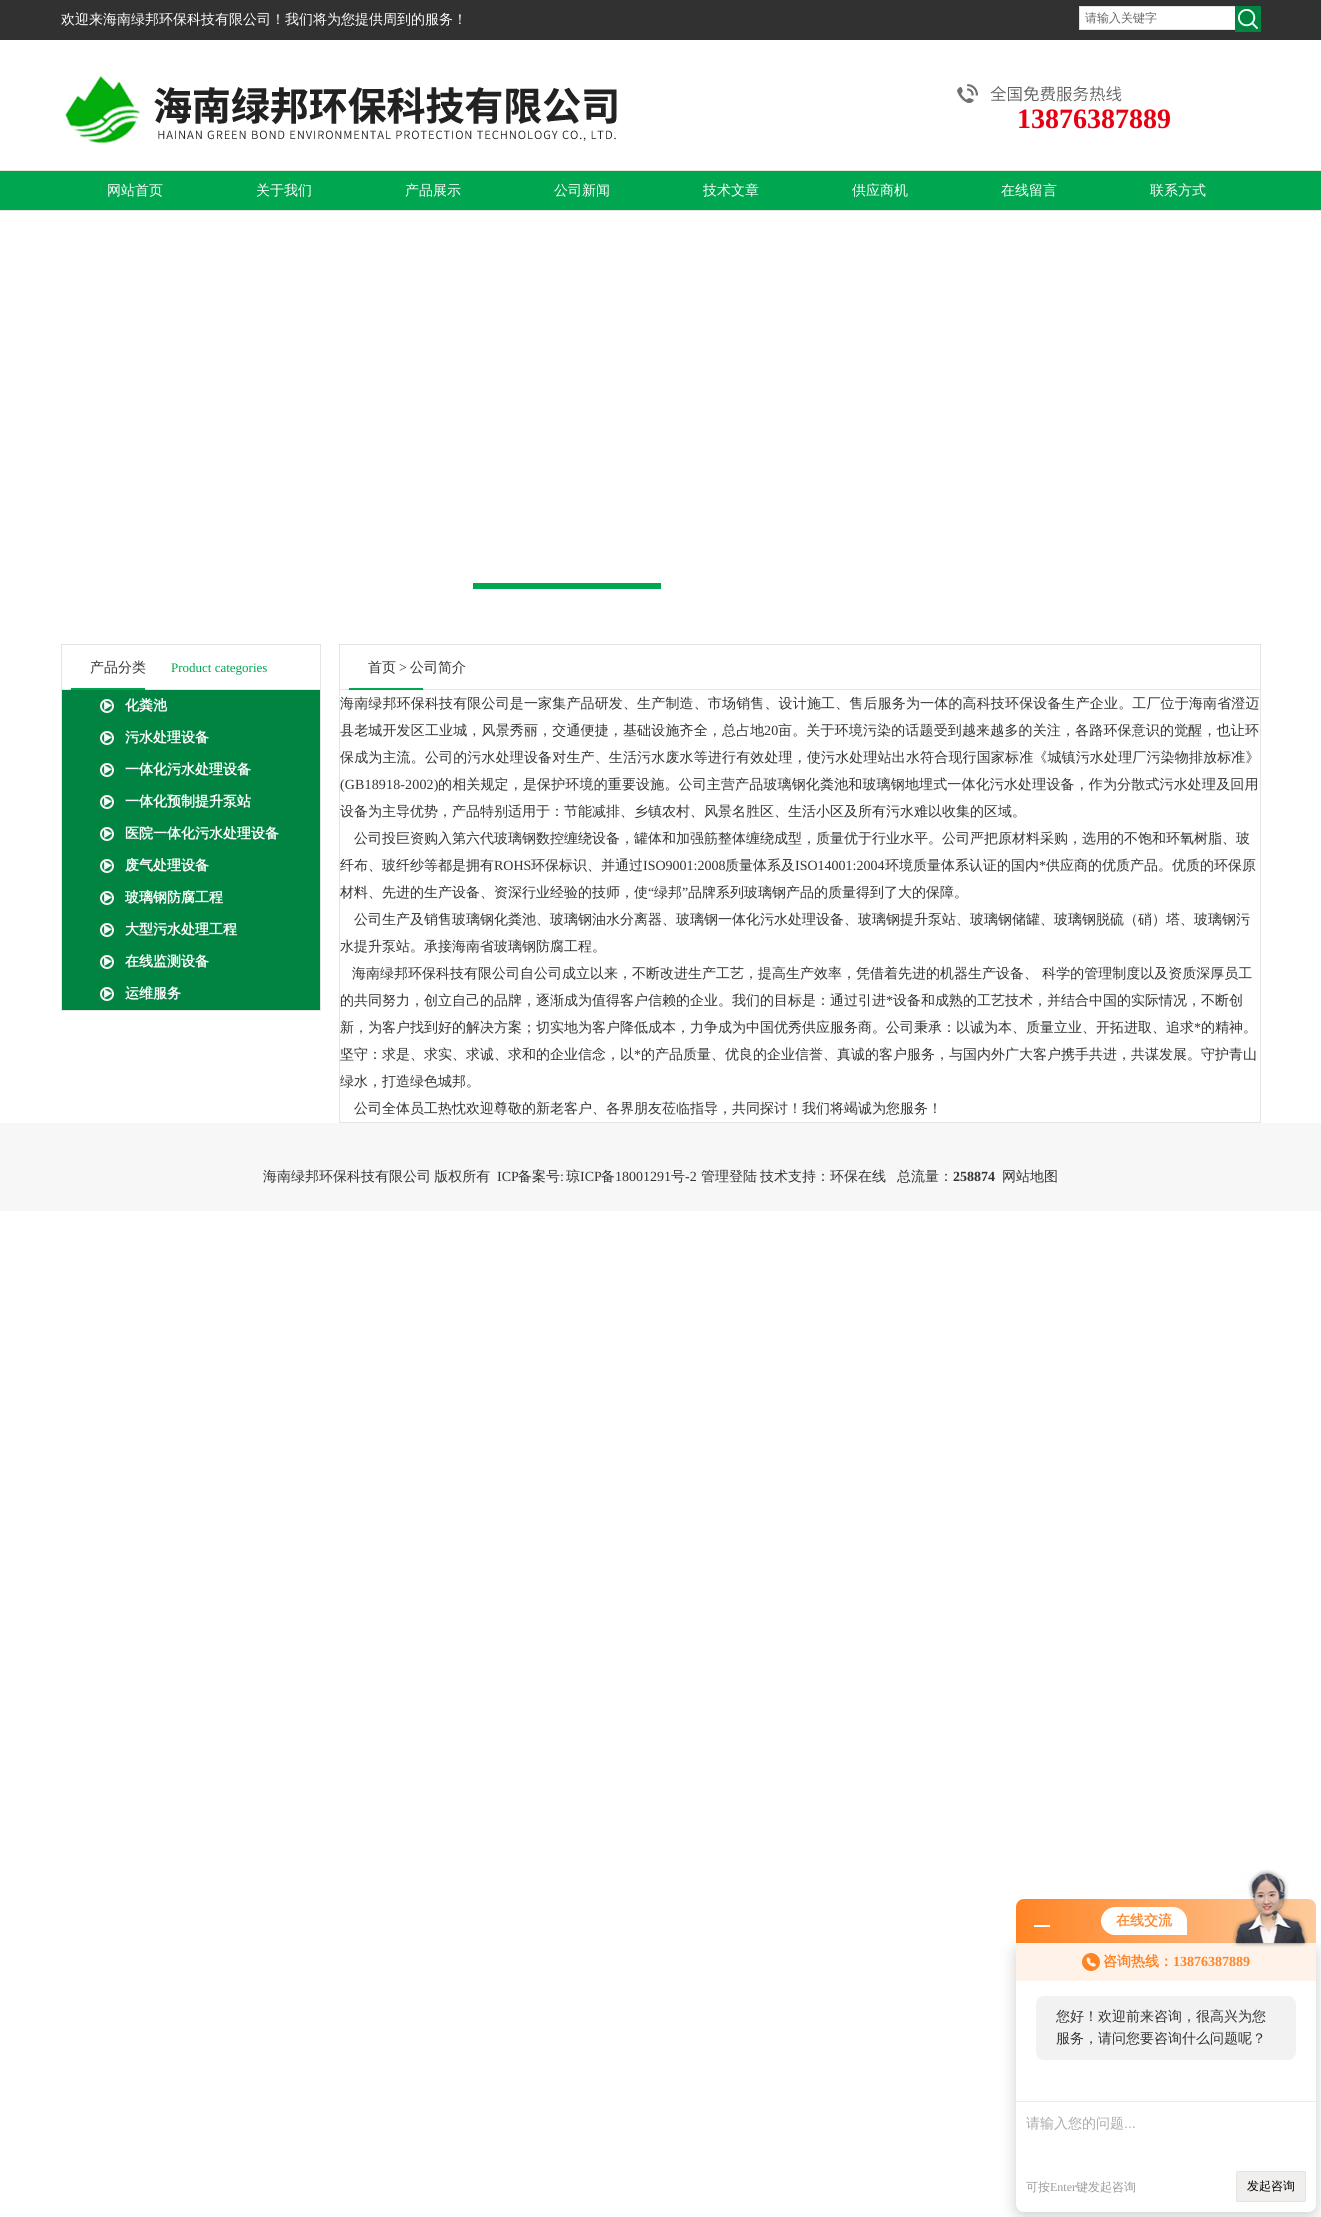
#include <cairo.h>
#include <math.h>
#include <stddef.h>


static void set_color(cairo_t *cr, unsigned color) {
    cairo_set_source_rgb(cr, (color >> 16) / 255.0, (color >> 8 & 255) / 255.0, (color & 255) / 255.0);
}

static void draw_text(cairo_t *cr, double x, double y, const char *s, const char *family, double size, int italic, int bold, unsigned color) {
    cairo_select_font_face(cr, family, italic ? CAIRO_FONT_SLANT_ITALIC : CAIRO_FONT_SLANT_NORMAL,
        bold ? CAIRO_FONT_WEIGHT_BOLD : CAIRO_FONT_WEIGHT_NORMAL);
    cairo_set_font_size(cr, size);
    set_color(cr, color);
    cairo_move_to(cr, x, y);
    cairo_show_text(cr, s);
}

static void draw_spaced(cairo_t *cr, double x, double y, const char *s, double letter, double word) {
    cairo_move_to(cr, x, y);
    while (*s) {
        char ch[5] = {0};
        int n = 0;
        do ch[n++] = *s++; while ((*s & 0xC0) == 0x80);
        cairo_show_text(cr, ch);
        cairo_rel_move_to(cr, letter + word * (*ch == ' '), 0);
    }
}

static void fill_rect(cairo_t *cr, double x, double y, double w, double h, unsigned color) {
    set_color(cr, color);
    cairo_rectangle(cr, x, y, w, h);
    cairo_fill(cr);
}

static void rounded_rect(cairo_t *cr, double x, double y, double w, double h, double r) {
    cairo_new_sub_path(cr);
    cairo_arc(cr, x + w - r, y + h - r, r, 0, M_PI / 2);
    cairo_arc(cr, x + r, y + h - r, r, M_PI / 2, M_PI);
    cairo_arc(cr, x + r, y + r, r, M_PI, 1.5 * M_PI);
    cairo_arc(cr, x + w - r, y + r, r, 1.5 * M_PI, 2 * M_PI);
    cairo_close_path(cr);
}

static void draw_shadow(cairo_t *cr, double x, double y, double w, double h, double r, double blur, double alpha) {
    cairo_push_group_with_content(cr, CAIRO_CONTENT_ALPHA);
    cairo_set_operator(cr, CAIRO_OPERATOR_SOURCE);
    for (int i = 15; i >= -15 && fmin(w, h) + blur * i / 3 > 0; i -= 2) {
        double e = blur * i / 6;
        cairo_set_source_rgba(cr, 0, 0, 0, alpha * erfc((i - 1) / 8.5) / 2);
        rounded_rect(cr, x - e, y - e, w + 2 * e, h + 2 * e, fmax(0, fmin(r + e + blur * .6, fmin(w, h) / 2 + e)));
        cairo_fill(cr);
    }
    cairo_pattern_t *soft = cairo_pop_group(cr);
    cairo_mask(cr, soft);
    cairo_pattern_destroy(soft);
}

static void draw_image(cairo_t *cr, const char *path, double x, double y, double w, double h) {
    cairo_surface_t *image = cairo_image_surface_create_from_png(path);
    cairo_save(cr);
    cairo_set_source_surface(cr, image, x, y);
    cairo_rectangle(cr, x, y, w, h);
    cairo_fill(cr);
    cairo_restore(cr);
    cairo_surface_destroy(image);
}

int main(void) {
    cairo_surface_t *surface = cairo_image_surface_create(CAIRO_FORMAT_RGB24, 1321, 2217);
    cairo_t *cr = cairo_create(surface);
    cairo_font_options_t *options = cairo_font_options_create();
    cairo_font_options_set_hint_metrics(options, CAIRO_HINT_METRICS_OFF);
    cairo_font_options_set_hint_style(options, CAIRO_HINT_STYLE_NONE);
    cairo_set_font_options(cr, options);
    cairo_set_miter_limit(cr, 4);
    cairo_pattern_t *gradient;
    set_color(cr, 0xFFFFFF);
    cairo_paint(cr);
    fill_rect(cr, 0, 0, 1321, 40, 0x313131);
    draw_text(cr, 61, 24, "欢迎来海南绿邦环保科技有限公司！我们将为您提供周到的服务！", "WenQuanYi Zen Hei Medium", 14, 0, 0, 0xFFFFFF);
    fill_rect(cr, 1080, 7, 155, 22, 0xFFFFFF);
    fill_rect(cr, 1079, 6, 156, 1, 0xE1E1E1);
    fill_rect(cr, 1079, 29, 156, 1, 0xE1E1E1);
    fill_rect(cr, 1079, 6, 1, 24, 0xE1E1E1);
    draw_text(cr, 1085, 22, "请输入关键字", "WenQuanYi Zen Hei Medium", 12, 0, 0, 0x666666);
    draw_image(cr, "assets/img1.png", 1235, 6, 26, 26);
    draw_image(cr, "assets/img2.png", 65, 76, 1057, 67);
    draw_text(cr, 1017, 128, "13876387889", "Liberation Serif", 28, 0, 1, 0xE60012);
    draw_image(cr, "assets/img3.png", 0, 170, 1321, 41);
    draw_text(cr, 107, 195, "网站首页", "WenQuanYi Zen Hei Medium", 14, 0, 0, 0xFFFFFF);
    draw_text(cr, 256, 195, "关于我们", "WenQuanYi Zen Hei Medium", 14, 0, 0, 0xFFFFFF);
    draw_text(cr, 405, 195, "产品展示", "WenQuanYi Zen Hei Medium", 14, 0, 0, 0xFFFFFF);
    draw_text(cr, 554, 195, "公司新闻", "WenQuanYi Zen Hei Medium", 14, 0, 0, 0xFFFFFF);
    draw_text(cr, 703, 195, "技术文章", "WenQuanYi Zen Hei Medium", 14, 0, 0, 0xFFFFFF);
    draw_text(cr, 852, 195, "供应商机", "WenQuanYi Zen Hei Medium", 14, 0, 0, 0xFFFFFF);
    draw_text(cr, 1001, 195, "在线留言", "WenQuanYi Zen Hei Medium", 14, 0, 0, 0xFFFFFF);
    draw_text(cr, 1150, 195, "联系方式", "WenQuanYi Zen Hei Medium", 14, 0, 0, 0xFFFFFF);
    fill_rect(cr, 473, 583, 188, 6, 0x00A650);
    cairo_rectangle(cr, 61.5, 644.5, 259, 366);
    set_color(cr, 0xE4E4E4);
    cairo_set_line_width(cr, 1);
    cairo_stroke(cr);
    draw_image(cr, "assets/img4.png", 62, 688, 258, 2);
    draw_text(cr, 90, 672, "产品分类", "WenQuanYi Zen Hei Medium", 14, 0, 0, 0x333333);
    draw_text(cr, 171, 672, "Product categories", "Liberation Serif", 13, 0, 0, 0x00A650);
    draw_image(cr, "assets/img5.png", 62, 690, 258, 32);
    draw_text(cr, 125, 710, "化粪池", "WenQuanYi Zen Hei", 14, 0, 1, 0xFFFFFF);
    draw_image(cr, "assets/img5.png", 62, 722, 258, 32);
    draw_text(cr, 125, 742, "污水处理设备", "WenQuanYi Zen Hei", 14, 0, 1, 0xFFFFFF);
    draw_image(cr, "assets/img5.png", 62, 754, 258, 32);
    draw_text(cr, 125, 774, "一体化污水处理设备", "WenQuanYi Zen Hei", 14, 0, 1, 0xFFFFFF);
    draw_image(cr, "assets/img5.png", 62, 786, 258, 32);
    draw_text(cr, 125, 806, "一体化预制提升泵站", "WenQuanYi Zen Hei", 14, 0, 1, 0xFFFFFF);
    draw_image(cr, "assets/img5.png", 62, 818, 258, 32);
    draw_text(cr, 125, 838, "医院一体化污水处理设备", "WenQuanYi Zen Hei", 14, 0, 1, 0xFFFFFF);
    draw_image(cr, "assets/img5.png", 62, 850, 258, 32);
    draw_text(cr, 125, 870, "废气处理设备", "WenQuanYi Zen Hei", 14, 0, 1, 0xFFFFFF);
    draw_image(cr, "assets/img5.png", 62, 882, 258, 32);
    draw_text(cr, 125, 902, "玻璃钢防腐工程", "WenQuanYi Zen Hei", 14, 0, 1, 0xFFFFFF);
    draw_image(cr, "assets/img5.png", 62, 914, 258, 32);
    draw_text(cr, 125, 934, "大型污水处理工程", "WenQuanYi Zen Hei", 14, 0, 1, 0xFFFFFF);
    draw_image(cr, "assets/img5.png", 62, 946, 258, 32);
    draw_text(cr, 125, 966, "在线监测设备", "WenQuanYi Zen Hei", 14, 0, 1, 0xFFFFFF);
    draw_image(cr, "assets/img5.png", 62, 978, 258, 32);
    draw_text(cr, 125, 998, "运维服务", "WenQuanYi Zen Hei", 14, 0, 1, 0xFFFFFF);
    cairo_rectangle(cr, 339.5, 644.5, 921, 478);
    set_color(cr, 0xE4E4E4);
    cairo_stroke(cr);
    draw_image(cr, "assets/img6.png", 340, 688, 920, 2);
    draw_text(cr, 368, 672, "首页", "WenQuanYi Zen Hei Medium", 14, 0, 0, 0x333333);
    draw_text(cr, 399, 672, ">", "Liberation Serif", 14, 0, 0, 0x333333);
    draw_text(cr, 410, 672, "公司简介", "WenQuanYi Zen Hei Medium", 14, 0, 0, 0x333333);
    draw_spaced(cr, 340, 708, "海南绿邦环保科技有限公司是一家集产品研发、生产制造、市场销售、设计施工、售后服务为一体的高科技环保设备生产企业。工厂位于海南省澄迈", 0.15, 0);
    draw_spaced(cr, 340, 735, "县老城开发区工业城，风景秀丽，交通便捷，基础设施齐全，总占地", 0.15, 0);
    cairo_select_font_face(cr, "Liberation Serif", CAIRO_FONT_SLANT_NORMAL, CAIRO_FONT_WEIGHT_NORMAL);
    draw_spaced(cr, 764, 735, "20", 0.15, 0);
    cairo_select_font_face(cr, "WenQuanYi Zen Hei Medium", CAIRO_FONT_SLANT_NORMAL, CAIRO_FONT_WEIGHT_NORMAL);
    draw_spaced(cr, 778, 735, "亩。关于环境污染的话题受到越来越多的关注，各路环保意识的觉醒，也让环", 0.15, 0);
    draw_spaced(cr, 340, 762, "保成为主流。公司的污水处理设备对生产、生活污水废水等进行有效处理，使污水处理站出水符合现行国家标准《城镇污水处理厂污染物排放标准》", 0.15, 0);
    cairo_select_font_face(cr, "Liberation Serif", CAIRO_FONT_SLANT_NORMAL, CAIRO_FONT_WEIGHT_NORMAL);
    draw_spaced(cr, 340, 789, "(GB18918-2002)", 0.15, 0);
    cairo_select_font_face(cr, "WenQuanYi Zen Hei Medium", CAIRO_FONT_SLANT_NORMAL, CAIRO_FONT_WEIGHT_NORMAL);
    draw_spaced(cr, 438, 789, "的相关规定，是保护环境的重要设施。公司主营产品玻璃钢化粪池和玻璃钢地埋式一体化污水处理设备，作为分散式污水处理及回用", 0.15, 0);
    draw_text(cr, 340, 816, "设备为主导优势，产品特别适用于：节能减排、乡镇农村、风景名胜区、生活小区及所有污水难以收集的区域。", "WenQuanYi Zen Hei Medium", 14, 0, 0, 0x333333);
    draw_text(cr, 354, 843, "公司投巨资购入第六代玻璃钢数控缠绕设备，罐体和加强筋整体缠绕成型，质量优于行业水平。公司严把原材料采购，选用的不饱和环氧树脂、玻", "WenQuanYi Zen Hei Medium", 14, 0, 0, 0x333333);
    draw_text(cr, 340, 870, "纤布、玻纤纱等都是拥有", "WenQuanYi Zen Hei Medium", 14, 0, 0, 0x333333);
    draw_text(cr, 494, 870, "ROHS", "Liberation Serif", 14, 0, 0, 0x333333);
    draw_text(cr, 531, 870, "环保标识、并通过", "WenQuanYi Zen Hei Medium", 14, 0, 0, 0x333333);
    draw_text(cr, 643, 870, "ISO9001:2008", "Liberation Serif", 14, 0, 0, 0x333333);
    draw_text(cr, 725, 870, "质量体系及", "WenQuanYi Zen Hei Medium", 14, 0, 0, 0x333333);
    draw_text(cr, 795, 870, "ISO14001:2004", "Liberation Serif", 14, 0, 0, 0x333333);
    draw_text(cr, 885, 870, "环境质量体系认证的国内", "WenQuanYi Zen Hei Medium", 14, 0, 0, 0x333333);
    draw_text(cr, 1039, 870, "*", "Liberation Serif", 14, 0, 0, 0x333333);
    draw_text(cr, 1046, 870, "供应商的优质产品。优质的环保原", "WenQuanYi Zen Hei Medium", 14, 0, 0, 0x333333);
    draw_text(cr, 340, 897, "材料、先进的生产设备、资深行业经验的技师，使", "WenQuanYi Zen Hei Medium", 14, 0, 0, 0x333333);
    draw_text(cr, 648, 897, "“", "Liberation Serif", 14, 0, 0, 0x333333);
    draw_text(cr, 654, 897, "绿邦", "WenQuanYi Zen Hei Medium", 14, 0, 0, 0x333333);
    draw_text(cr, 682, 897, "”", "Liberation Serif", 14, 0, 0, 0x333333);
    draw_text(cr, 688, 897, "品牌系列玻璃钢产品的质量得到了大的保障。", "WenQuanYi Zen Hei Medium", 14, 0, 0, 0x333333);
    draw_text(cr, 354, 924, "公司生产及销售玻璃钢化粪池、玻璃钢油水分离器、玻璃钢一体化污水处理设备、玻璃钢提升泵站、玻璃钢储罐、玻璃钢脱硫（硝）塔、玻璃钢污", "WenQuanYi Zen Hei Medium", 14, 0, 0, 0x333333);
    draw_text(cr, 340, 951, "水提升泵站。承接海南省玻璃钢防腐工程。", "WenQuanYi Zen Hei Medium", 14, 0, 0, 0x333333);
    draw_text(cr, 352, 978, "海南绿邦环保科技有限公司自公司成立以来，不断改进生产工艺，提高生产效率，凭借着先进的机器生产设备、 科学的管理制度以及资质深厚员工", "WenQuanYi Zen Hei Medium", 14, 0, 0, 0x333333);
    draw_text(cr, 340, 1005, "的共同努力，创立自己的品牌，逐渐成为值得客户信赖的企业。我们的目标是：通过引进", "WenQuanYi Zen Hei Medium", 14, 0, 0, 0x333333);
    draw_text(cr, 886, 1005, "*", "Liberation Serif", 14, 0, 0, 0x333333);
    draw_text(cr, 893, 1005, "设备和成熟的工艺技术，并结合中国的实际情况，不断创", "WenQuanYi Zen Hei Medium", 14, 0, 0, 0x333333);
    draw_text(cr, 340, 1032, "新，为客户找到好的解决方案；切实地为客户降低成本，力争成为中国优秀供应服务商。公司秉承：以诚为本、质量立业、开拓进取、追求", "WenQuanYi Zen Hei Medium", 14, 0, 0, 0x333333);
    draw_text(cr, 1194, 1032, "*", "Liberation Serif", 14, 0, 0, 0x333333);
    draw_text(cr, 1201, 1032, "的精神。", "WenQuanYi Zen Hei Medium", 14, 0, 0, 0x333333);
    draw_text(cr, 340, 1059, "坚守：求是、求实、求诚、求和的企业信念，以", "WenQuanYi Zen Hei Medium", 14, 0, 0, 0x333333);
    draw_text(cr, 634, 1059, "*", "Liberation Serif", 14, 0, 0, 0x333333);
    draw_text(cr, 641, 1059, "的产品质量、优良的企业信誉、真诚的客户服务，与国内外广大客户携手共进，共谋发展。守护青山", "WenQuanYi Zen Hei Medium", 14, 0, 0, 0x333333);
    draw_text(cr, 340, 1086, "绿水，打造绿色城邦。", "WenQuanYi Zen Hei Medium", 14, 0, 0, 0x333333);
    draw_text(cr, 354, 1113, "公司全体员工热忱欢迎尊敬的新老客户、各界朋友莅临指导，共同探讨！我们将竭诚为您服务！", "WenQuanYi Zen Hei Medium", 14, 0, 0, 0x333333);
    fill_rect(cr, 0, 1123, 1321, 88, 0xF7F7F7);
    set_color(cr, 0x333333);
    draw_spaced(cr, 263, 1181, "海南绿邦环保科技有限公司 版权所有", 0, -1);
    draw_text(cr, 497, 1181, "ICP", "Liberation Serif", 14, 0, 0, 0x333333);
    draw_text(cr, 518, 1181, "备案号", "WenQuanYi Zen Hei Medium", 14, 0, 0, 0x333333);
    draw_text(cr, 560, 1181, ":", "Liberation Serif", 14, 0, 0, 0x333333);
    draw_text(cr, 566, 1181, "琼", "WenQuanYi Zen Hei Medium", 14, 0, 0, 0x333333);
    draw_text(cr, 580, 1181, "ICP", "Liberation Serif", 14, 0, 0, 0x333333);
    draw_text(cr, 601, 1181, "备", "WenQuanYi Zen Hei Medium", 14, 0, 0, 0x333333);
    draw_text(cr, 615, 1181, "18001291", "Liberation Serif", 14, 0, 0, 0x333333);
    draw_text(cr, 671, 1181, "号", "WenQuanYi Zen Hei Medium", 14, 0, 0, 0x333333);
    draw_text(cr, 685, 1181, "-2", "Liberation Serif", 14, 0, 0, 0x333333);
    draw_text(cr, 701, 1181, "管理登陆", "WenQuanYi Zen Hei Medium", 14, 0, 0, 0x333333);
    draw_text(cr, 760, 1181, "技术支持：环保在线", "WenQuanYi Zen Hei Medium", 14, 0, 0, 0x333333);
    draw_text(cr, 897, 1181, "总流量：", "WenQuanYi Zen Hei Medium", 14, 0, 0, 0x333333);
    draw_text(cr, 953, 1181, "258874", "Liberation Serif", 14, 0, 1, 0x333333);
    draw_text(cr, 1002, 1181, "网站地图", "WenQuanYi Zen Hei Medium", 14, 0, 0, 0x333333);
    set_color(cr, 0x000000);
    draw_shadow(cr, 1016, 1947, 300, 269, 8, 8, 0.2);
    gradient = cairo_pattern_create_linear(1016, 1921, 1316, 1921);
    cairo_pattern_add_color_stop_rgba(gradient, 0, 1, 0.514, 0.141, 1);
    cairo_pattern_add_color_stop_rgba(gradient, 1, 0.996, 0.796, 0.612, 1);
    cairo_set_source(cr, gradient);
    cairo_pattern_destroy(gradient);
    cairo_new_path(cr);
    cairo_move_to(cr, 1024, 1899);
    cairo_line_to(cr, 1308, 1899);
    cairo_curve_to(cr, 1312.5, 1899, 1316, 1902.5, 1316, 1907);
    cairo_line_to(cr, 1316, 1943);
    cairo_line_to(cr, 1016, 1943);
    cairo_line_to(cr, 1016, 1907);
    cairo_curve_to(cr, 1016, 1902.5, 1019.5, 1899, 1024, 1899);
    cairo_close_path(cr);
    cairo_fill(cr);
    fill_rect(cr, 1034, 1925, 16, 2, 0xFFFFFF);
    cairo_new_path(cr);
    cairo_move_to(cr, 1115, 1907);
    cairo_line_to(cr, 1173, 1907);
    cairo_curve_to(cr, 1180.5, 1907, 1187, 1913.5, 1187, 1921);
    cairo_line_to(cr, 1187, 1935);
    cairo_line_to(cr, 1115, 1935);
    cairo_curve_to(cr, 1107.5, 1935, 1101, 1928.5, 1101, 1921);
    cairo_curve_to(cr, 1101, 1913.5, 1107.5, 1907, 1115, 1907);
    cairo_close_path(cr);
    cairo_fill(cr);
    draw_text(cr, 1116, 1925, "在线交流", "WenQuanYi Zen Hei", 14, 0, 1, 0xFB8B36);
    set_color(cr, 0xFFFFFF);
    cairo_new_path(cr);
    cairo_move_to(cr, 1016, 1943);
    cairo_line_to(cr, 1316, 1943);
    cairo_line_to(cr, 1316, 2204);
    cairo_curve_to(cr, 1316, 2208.5, 1312.5, 2212, 1308, 2212);
    cairo_line_to(cr, 1024, 2212);
    cairo_curve_to(cr, 1019.5, 2212, 1016, 2208.5, 1016, 2204);
    cairo_close_path(cr);
    cairo_fill(cr);
    fill_rect(cr, 1016, 1943, 300, 38, 0xFFF3E9);
    draw_image(cr, "assets/img7.png", 1232, 1869, 76, 78);
    draw_image(cr, "assets/img8.png", 1082, 1953, 18, 18);
    draw_text(cr, 1103, 1966, "咨询热线：", "WenQuanYi Zen Hei", 14, 0, 1, 0xFF8426);
    draw_text(cr, 1173, 1966, "13876387889", "Liberation Serif", 14, 0, 1, 0xFF8426);
    set_color(cr, 0xF2F2F2);
    rounded_rect(cr, 1036, 1996, 260, 64, 8);
    cairo_fill(cr);
    draw_text(cr, 1056, 2021, "您好！欢迎前来咨询，很高兴为您", "WenQuanYi Zen Hei Medium", 14, 0, 0, 0x333333);
    draw_text(cr, 1056, 2043, "服务，请问您要咨询什么问题呢？", "WenQuanYi Zen Hei Medium", 14, 0, 0, 0x333333);
    fill_rect(cr, 1016, 2101, 300, 1, 0xEAEAEA);
    draw_text(cr, 1026, 2128, "请输入您的问题", "WenQuanYi Zen Hei Medium", 14, 0, 0, 0xAAAAAA);
    draw_text(cr, 1124, 2128, "...", "Liberation Sans", 14, 0, 0, 0xAAAAAA);
    draw_text(cr, 1026, 2191, "可按", "WenQuanYi Zen Hei Medium", 12, 0, 0, 0x999999);
    draw_text(cr, 1050, 2191, "Enter", "Liberation Serif", 12, 0, 0, 0x999999);
    draw_text(cr, 1076, 2191, "键发起咨询", "WenQuanYi Zen Hei Medium", 12, 0, 0, 0x999999);
    set_color(cr, 0xF0EFED);
    rounded_rect(cr, 1236.5, 2171.5, 69, 30, 1.5);
    cairo_fill_preserve(cr);
    set_color(cr, 0xE2E2E2);
    cairo_stroke(cr);
    draw_text(cr, 1247, 2190, "发起咨询", "WenQuanYi Zen Hei Medium", 12, 0, 0, 0x000000);
    cairo_surface_write_to_png(surface, "output.png");
    cairo_font_options_destroy(options);
    cairo_destroy(cr);
    cairo_surface_destroy(surface);
    return 0;
}
